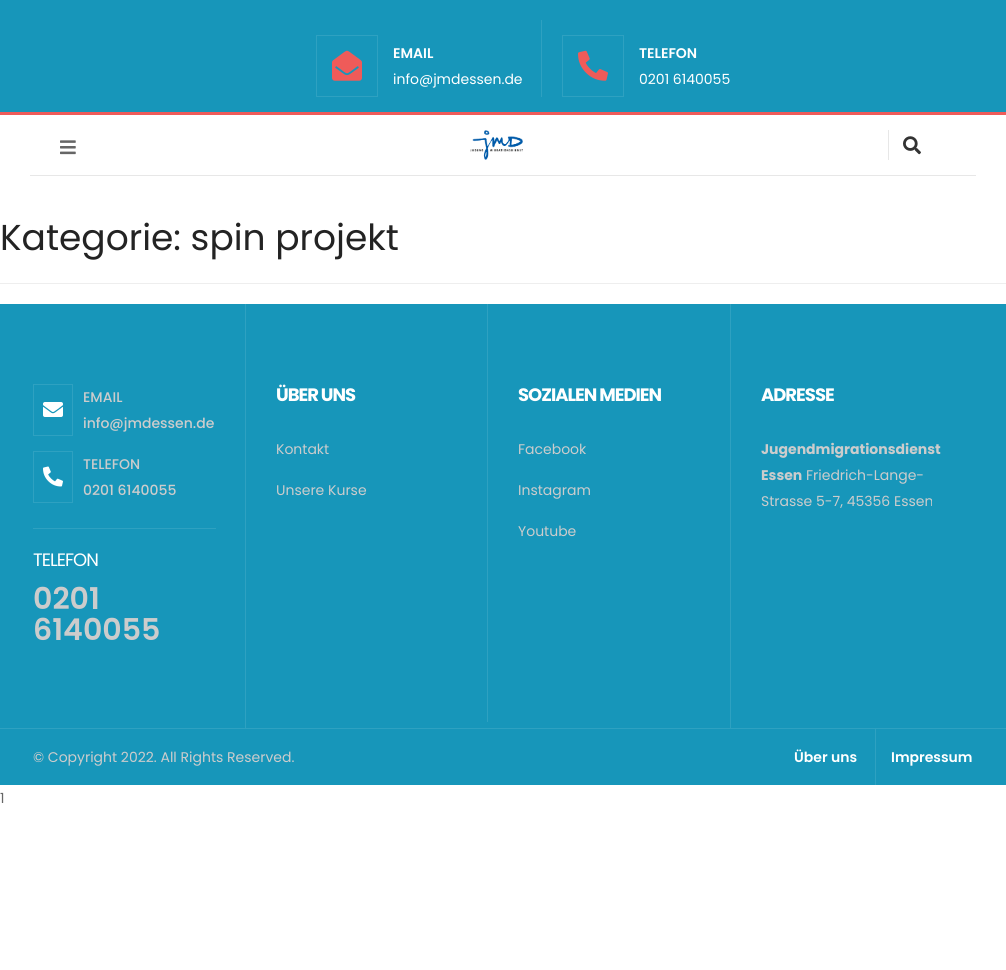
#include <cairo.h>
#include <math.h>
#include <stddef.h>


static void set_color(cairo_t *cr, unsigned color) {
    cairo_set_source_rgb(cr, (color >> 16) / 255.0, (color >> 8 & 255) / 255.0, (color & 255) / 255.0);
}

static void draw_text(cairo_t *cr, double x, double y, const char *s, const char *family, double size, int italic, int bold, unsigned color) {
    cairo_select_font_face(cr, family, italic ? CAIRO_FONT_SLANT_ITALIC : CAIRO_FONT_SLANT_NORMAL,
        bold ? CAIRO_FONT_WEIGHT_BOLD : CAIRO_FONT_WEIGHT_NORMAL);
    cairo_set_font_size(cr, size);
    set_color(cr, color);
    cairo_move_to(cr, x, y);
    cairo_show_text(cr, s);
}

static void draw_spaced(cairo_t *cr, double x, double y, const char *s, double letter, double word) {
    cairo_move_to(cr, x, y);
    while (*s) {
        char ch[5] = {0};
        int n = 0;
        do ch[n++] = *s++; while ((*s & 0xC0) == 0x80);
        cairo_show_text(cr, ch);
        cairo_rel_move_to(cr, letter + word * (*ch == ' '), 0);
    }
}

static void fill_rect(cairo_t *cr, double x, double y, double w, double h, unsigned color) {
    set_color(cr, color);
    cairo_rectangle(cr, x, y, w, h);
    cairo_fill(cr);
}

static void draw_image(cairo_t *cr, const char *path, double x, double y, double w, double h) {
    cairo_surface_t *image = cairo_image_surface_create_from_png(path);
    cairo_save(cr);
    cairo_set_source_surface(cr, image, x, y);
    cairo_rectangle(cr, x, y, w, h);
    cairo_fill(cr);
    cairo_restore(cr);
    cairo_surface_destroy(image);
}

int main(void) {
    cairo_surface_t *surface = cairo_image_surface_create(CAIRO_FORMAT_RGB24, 1006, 970);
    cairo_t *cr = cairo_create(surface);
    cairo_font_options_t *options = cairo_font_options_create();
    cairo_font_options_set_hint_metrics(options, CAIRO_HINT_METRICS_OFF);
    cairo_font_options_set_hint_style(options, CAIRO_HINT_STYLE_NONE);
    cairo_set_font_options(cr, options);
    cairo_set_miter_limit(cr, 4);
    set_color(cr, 0xFFFFFF);
    cairo_paint(cr);
    fill_rect(cr, 0, 0, 1006, 112, 0x1796BA);
    fill_rect(cr, 0, 112, 1006, 3, 0xEF5B59);
    cairo_rectangle(cr, 316.5, 35.5, 61, 61);
    set_color(cr, 0x2EA1C1);
    cairo_set_line_width(cr, 1);
    cairo_stroke(cr);
    draw_image(cr, "assets/img1.png", 332, 50, 30, 31);
    draw_text(cr, 393, 58, "EMAIL", "Poppins SemiBold", 14, 0, 0, 0xFFFFFF);
    draw_text(cr, 393, 84, "info@jmdessen.de", "Poppins", 14, 0, 0, 0xFFFFFF);
    fill_rect(cr, 541, 20, 1, 77, 0x2EA1C1);
    cairo_rectangle(cr, 562.5, 35.5, 61, 61);
    cairo_stroke(cr);
    draw_image(cr, "assets/img2.png", 578, 50, 30, 31);
    draw_text(cr, 639, 58, "TELEFON", "Poppins SemiBold", 14, 0, 0, 0xFFFFFF);
    draw_text(cr, 639, 84, "0201 6140055", "Poppins", 14, 0, 0, 0xFFFFFF);
    fill_rect(cr, 30, 175, 946, 1, 0xE7E7E7);
    draw_image(cr, "assets/img3.png", 60, 140, 16, 15);
    draw_image(cr, "assets/img4.png", 470, 130, 53, 30);
    fill_rect(cr, 888, 130, 1, 30, 0xE7E7E7);
    draw_image(cr, "assets/img5.png", 903, 136, 18, 19);
    fill_rect(cr, 0, 283, 1006, 1, 0xEEEEEE);
    draw_text(cr, 0, 250, "Kategorie: spin projekt", "Poppins", 36, 0, 0, 0x232323);
    fill_rect(cr, 0, 304, 1006, 481, 0x1796BA);
    cairo_rectangle(cr, 33.5, 384.5, 39, 51);
    set_color(cr, 0x2EA1C1);
    cairo_stroke(cr);
    draw_image(cr, "assets/img6.png", 43, 402, 20, 15);
    draw_text(cr, 83, 402, "EMAIL", "Poppins Medium", 14, 0, 0, 0xCCCCCC);
    draw_text(cr, 83, 428, "info@jmdessen.de", "Poppins Medium", 14, 0, 0, 0xCCCCCC);
    cairo_rectangle(cr, 33.5, 451.5, 39, 51);
    set_color(cr, 0x2EA1C1);
    cairo_stroke(cr);
    draw_image(cr, "assets/img7.png", 43, 466, 20, 21);
    draw_text(cr, 83, 469, "TELEFON", "Poppins Medium", 14, 0, 0, 0xCCCCCC);
    draw_text(cr, 83, 495, "0201 6140055", "Poppins Medium", 14, 0, 0, 0xCCCCCC);
    fill_rect(cr, 245, 304, 1, 424, 0x2EA1C1);
    fill_rect(cr, 33, 528, 183, 1, 0x2EA1C1);
    cairo_select_font_face(cr, "Poppins", CAIRO_FONT_SLANT_NORMAL, CAIRO_FONT_WEIGHT_NORMAL);
    cairo_set_font_size(cr, 18);
    set_color(cr, 0xFFFFFF);
    draw_spaced(cr, 33, 566, "TELEFON", -1, 0);
    draw_text(cr, 33, 609, "0201", "Poppins SemiBold", 30, 0, 0, 0xCCCCCC);
    draw_text(cr, 33, 640, "6140055", "Poppins SemiBold", 30, 0, 0, 0xCCCCCC);
    cairo_select_font_face(cr, "Poppins", CAIRO_FONT_SLANT_NORMAL, CAIRO_FONT_WEIGHT_BOLD);
    cairo_set_font_size(cr, 18);
    set_color(cr, 0xFFFFFF);
    draw_spaced(cr, 276, 401, "ÜBER UNS", -1, 0);
    fill_rect(cr, 487, 304, 1, 418, 0x2EA1C1);
    draw_text(cr, 276, 454, "Kontakt", "Poppins", 14, 0, 0, 0xCCCCCC);
    draw_text(cr, 276, 495, "Unsere Kurse", "Poppins", 14, 0, 0, 0xCCCCCC);
    cairo_select_font_face(cr, "Poppins", CAIRO_FONT_SLANT_NORMAL, CAIRO_FONT_WEIGHT_BOLD);
    cairo_set_font_size(cr, 18);
    set_color(cr, 0xFFFFFF);
    draw_spaced(cr, 518, 401, "SOZIALEN MEDIEN", -1, 0);
    fill_rect(cr, 730, 304, 1, 424, 0x2EA1C1);
    draw_text(cr, 518, 454, "Facebook", "Poppins", 14, 0, 0, 0xCCCCCC);
    draw_text(cr, 518, 495, "Instagram", "Poppins", 14, 0, 0, 0xCCCCCC);
    draw_text(cr, 518, 536, "Youtube", "Poppins", 14, 0, 0, 0xCCCCCC);
    cairo_select_font_face(cr, "Poppins", CAIRO_FONT_SLANT_NORMAL, CAIRO_FONT_WEIGHT_BOLD);
    cairo_set_font_size(cr, 18);
    set_color(cr, 0xFFFFFF);
    draw_spaced(cr, 761, 401, "ADRESSE", -1, 0);
    draw_text(cr, 761, 454, "Jugendmigrationsdienst", "Poppins", 14, 0, 1, 0xCCCCCC);
    draw_text(cr, 761, 480, "Essen", "Poppins", 14, 0, 1, 0xCCCCCC);
    draw_text(cr, 806, 480, "Friedrich-Lange-", "Poppins", 14, 0, 0, 0xCCCCCC);
    draw_text(cr, 761, 506, "Strasse 5-7, 45356 Essen", "Poppins", 14, 0, 0, 0xCCCCCC);
    fill_rect(cr, 0, 728, 1006, 1, 0x2EA1C1);
    draw_text(cr, 33, 762, "© Copyright 2022. All Rights Reserved.", "Poppins", 14, 0, 0, 0xCCCCCC);
    draw_text(cr, 794, 762, "Über uns", "Poppins SemiBold", 14, 0, 0, 0xFFFFFF);
    fill_rect(cr, 875, 729, 1, 56, 0x2EA1C1);
    draw_text(cr, 891, 762, "Impressum", "Poppins SemiBold", 14, 0, 0, 0xFFFFFF);
    draw_text(cr, 0, 803, "1", "Poppins", 14, 0, 0, 0x666666);
    cairo_surface_write_to_png(surface, "output.png");
    cairo_font_options_destroy(options);
    cairo_destroy(cr);
    cairo_surface_destroy(surface);
    return 0;
}
